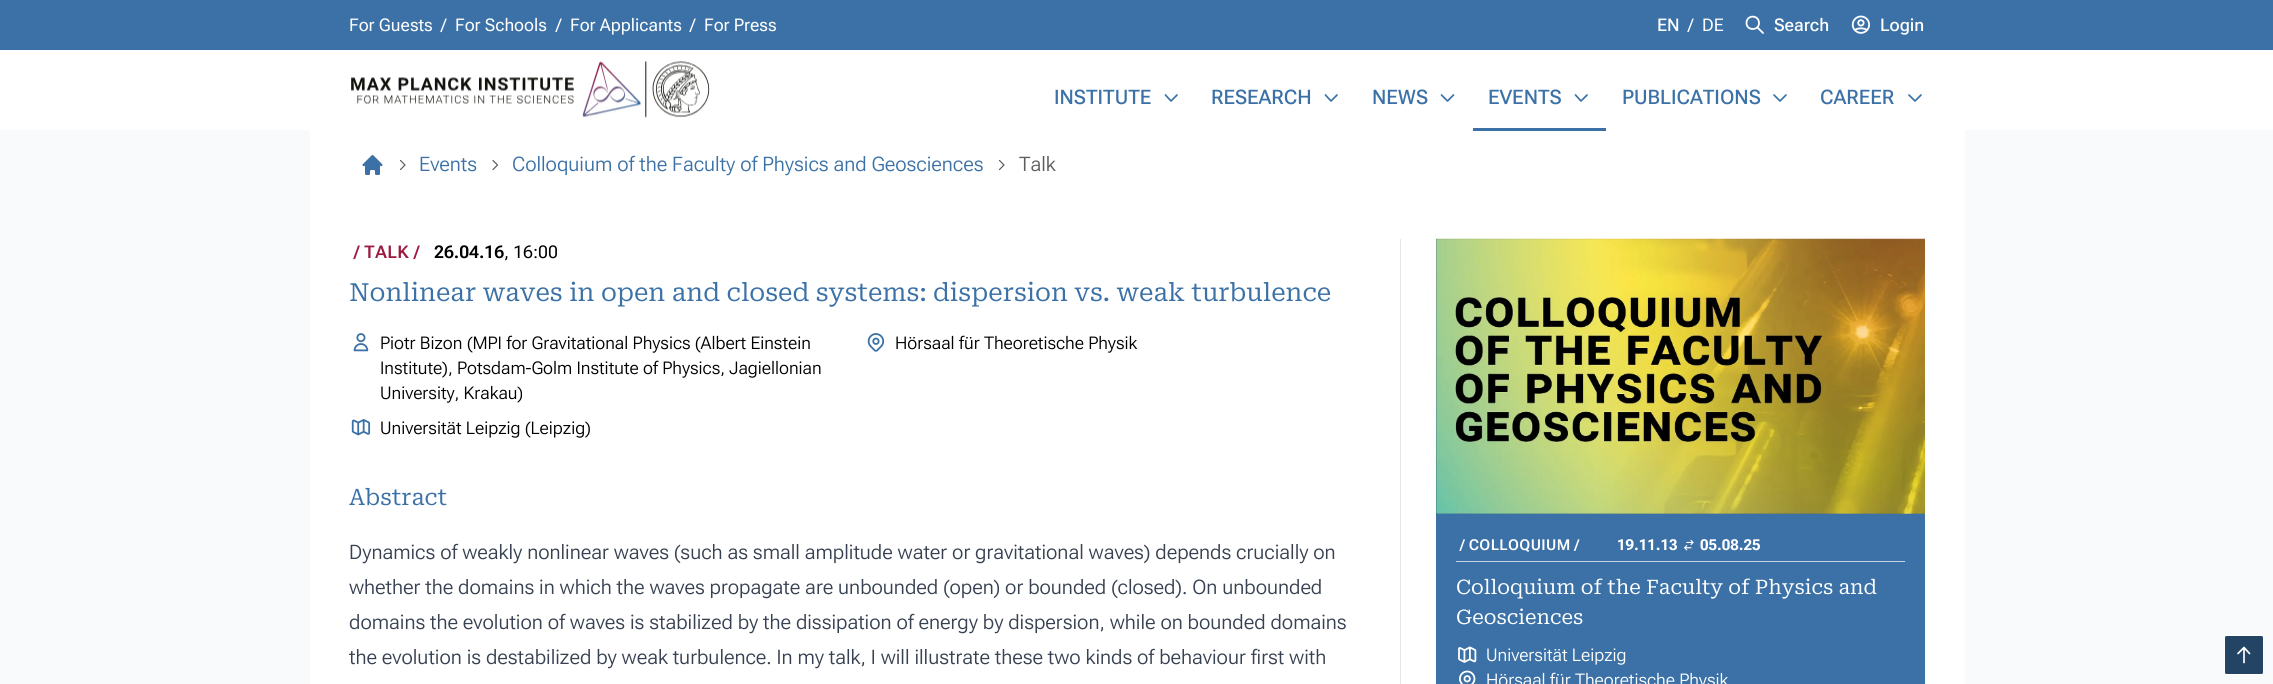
#include <cairo.h>
#include <math.h>
#include <stddef.h>


static void set_color(cairo_t *cr, unsigned color) {
    cairo_set_source_rgb(cr, (color >> 16) / 255.0, (color >> 8 & 255) / 255.0, (color & 255) / 255.0);
}

static void draw_text(cairo_t *cr, double x, double y, const char *s, const char *family, double size, int italic, int bold, unsigned color) {
    cairo_select_font_face(cr, family, italic ? CAIRO_FONT_SLANT_ITALIC : CAIRO_FONT_SLANT_NORMAL,
        bold ? CAIRO_FONT_WEIGHT_BOLD : CAIRO_FONT_WEIGHT_NORMAL);
    cairo_set_font_size(cr, size);
    set_color(cr, color);
    cairo_move_to(cr, x, y);
    cairo_show_text(cr, s);
}

static void draw_spaced(cairo_t *cr, double x, double y, const char *s, double letter, double word) {
    cairo_move_to(cr, x, y);
    while (*s) {
        char ch[5] = {0};
        int n = 0;
        do ch[n++] = *s++; while ((*s & 0xC0) == 0x80);
        cairo_show_text(cr, ch);
        cairo_rel_move_to(cr, letter + word * (*ch == ' '), 0);
    }
}

static void fill_rect(cairo_t *cr, double x, double y, double w, double h, unsigned color) {
    set_color(cr, color);
    cairo_rectangle(cr, x, y, w, h);
    cairo_fill(cr);
}

static void rounded_rect(cairo_t *cr, double x, double y, double w, double h, double r) {
    cairo_new_sub_path(cr);
    cairo_arc(cr, x + w - r, y + h - r, r, 0, M_PI / 2);
    cairo_arc(cr, x + r, y + h - r, r, M_PI / 2, M_PI);
    cairo_arc(cr, x + r, y + r, r, M_PI, 1.5 * M_PI);
    cairo_arc(cr, x + w - r, y + r, r, 1.5 * M_PI, 2 * M_PI);
    cairo_close_path(cr);
}

static void draw_image(cairo_t *cr, const char *path, double x, double y, double w, double h) {
    cairo_surface_t *image = cairo_image_surface_create_from_png(path);
    cairo_save(cr);
    cairo_set_source_surface(cr, image, x, y);
    cairo_rectangle(cr, x, y, w, h);
    cairo_fill(cr);
    cairo_restore(cr);
    cairo_surface_destroy(image);
}

int main(void) {
    cairo_surface_t *surface = cairo_image_surface_create(CAIRO_FORMAT_RGB24, 2273, 684);
    cairo_t *cr = cairo_create(surface);
    cairo_font_options_t *options = cairo_font_options_create();
    cairo_font_options_set_hint_metrics(options, CAIRO_HINT_METRICS_OFF);
    cairo_font_options_set_hint_style(options, CAIRO_HINT_STYLE_NONE);
    cairo_set_font_options(cr, options);
    cairo_set_miter_limit(cr, 4);
    set_color(cr, 0xF8FAFC);
    cairo_paint(cr);
    fill_rect(cr, 0, 50, 2273, 80, 0xFFFFFF);
    fill_rect(cr, 0, 0, 2273, 50, 0x3B71A6);
    draw_text(cr, 349, 31, "For Guests", "Roboto Flex", 17.5, 0, 0, 0xFFFFFF);
    draw_text(cr, 441, 31, "/", "Roboto Flex", 17.5, 0, 0, 0xFFFFFF);
    draw_text(cr, 455, 31, "For Schools", "Roboto Flex", 17.5, 0, 0, 0xFFFFFF);
    draw_text(cr, 556, 31, "/", "Roboto Flex", 17.5, 0, 0, 0xFFFFFF);
    draw_text(cr, 570, 31, "For Applicants", "Roboto Flex", 17.5, 0, 0, 0xFFFFFF);
    draw_text(cr, 690, 31, "/", "Roboto Flex", 17.5, 0, 0, 0xFFFFFF);
    draw_text(cr, 704, 31, "For Press", "Roboto Flex", 17.5, 0, 0, 0xFFFFFF);
    draw_text(cr, 1657, 31, "EN", "Roboto Flex Medium", 17.5, 0, 0, 0xFFFFFF);
    draw_text(cr, 1688, 31, "/", "Roboto Flex", 17.5, 0, 0, 0xFFFFFF);
    draw_text(cr, 1702, 31, "DE", "Roboto Flex", 17.5, 0, 0, 0xFFFFFF);
    cairo_new_path(cr);
    cairo_move_to(cr, 1763, 33);
    cairo_line_to(cr, 1757.5, 27.5);
    cairo_move_to(cr, 1759, 23);
    cairo_curve_to(cr, 1759, 31, 1746.5, 31, 1746.5, 23);
    cairo_curve_to(cr, 1746.5, 14.5, 1759, 14.5, 1759, 23);
    cairo_close_path(cr);
    cairo_set_line_width(cr, 1.8);
    cairo_set_line_cap(cr, CAIRO_LINE_CAP_ROUND);
    cairo_set_line_join(cr, CAIRO_LINE_JOIN_ROUND);
    cairo_stroke(cr);
    draw_text(cr, 1774, 31, "Search", "Roboto Flex Medium", 17.5, 0, 0, 0xFFFFFF);
    draw_image(cr, "assets/img1.png", 1851, 15, 19, 19);
    draw_text(cr, 1880, 31, "Login", "Roboto Flex Medium", 17.5, 0, 0, 0xFFFFFF);
    draw_image(cr, "assets/img2.png", 351, 61, 359, 57);
    draw_text(cr, 1054, 104, "INSTITUTE", "Roboto Flex Medium", 20, 0, 0, 0x3B71A6);
    cairo_new_path(cr);
    cairo_move_to(cr, 1177, 95);
    cairo_line_to(cr, 1171, 101);
    cairo_line_to(cr, 1165.5, 95);
    cairo_set_line_width(cr, 1.7);
    cairo_stroke(cr);
    draw_text(cr, 1211, 104, "RESEARCH", "Roboto Flex Medium", 20, 0, 0, 0x3B71A6);
    cairo_new_path(cr);
    cairo_move_to(cr, 1337, 95);
    cairo_line_to(cr, 1331, 101);
    cairo_line_to(cr, 1325.5, 95);
    cairo_stroke(cr);
    draw_text(cr, 1372, 104, "NEWS", "Roboto Flex Medium", 20, 0, 0, 0x3B71A6);
    cairo_new_path(cr);
    cairo_move_to(cr, 1453.5, 95);
    cairo_line_to(cr, 1447.5, 101);
    cairo_line_to(cr, 1441.5, 95);
    cairo_stroke(cr);
    fill_rect(cr, 310, 130, 1655, 554, 0xFFFFFF);
    fill_rect(cr, 1473, 128, 133, 3, 0x3B71A6);
    draw_text(cr, 1488, 104, "EVENTS", "Roboto Flex Medium", 20, 0, 0, 0x3B71A6);
    cairo_new_path(cr);
    cairo_move_to(cr, 1587, 95);
    cairo_line_to(cr, 1581, 101);
    cairo_line_to(cr, 1575.5, 95);
    cairo_stroke(cr);
    draw_text(cr, 1622, 104, "PUBLICATIONS", "Roboto Flex Medium", 20, 0, 0, 0x3B71A6);
    cairo_new_path(cr);
    cairo_move_to(cr, 1786, 95);
    cairo_line_to(cr, 1780, 101);
    cairo_line_to(cr, 1774, 95);
    cairo_stroke(cr);
    draw_text(cr, 1820, 104, "CAREER", "Roboto Flex Medium", 20, 0, 0, 0x3B71A6);
    cairo_new_path(cr);
    cairo_move_to(cr, 1921, 95);
    cairo_line_to(cr, 1915, 101);
    cairo_line_to(cr, 1909, 95);
    cairo_stroke(cr);
    draw_image(cr, "assets/img3.png", 362, 155, 21, 20);
    cairo_new_path(cr);
    cairo_move_to(cr, 400.5, 160.5);
    cairo_line_to(cr, 405, 165);
    cairo_line_to(cr, 400.5, 169.5);
    set_color(cr, 0x5C5C5C);
    cairo_set_line_width(cr, 1.2);
    cairo_stroke(cr);
    draw_text(cr, 419, 171, "Events", "Roboto Flex Light", 20, 0, 0, 0x3B71A6);
    cairo_new_path(cr);
    cairo_move_to(cr, 493, 160.5);
    cairo_line_to(cr, 497.5, 165);
    cairo_line_to(cr, 493, 169.5);
    set_color(cr, 0x5C5C5C);
    cairo_stroke(cr);
    draw_text(cr, 512, 171, "Colloquium of the Faculty of Physics and Geosciences", "Roboto Flex Light", 20, 0, 0, 0x3B71A6);
    cairo_new_path(cr);
    cairo_move_to(cr, 999.5, 160.5);
    cairo_line_to(cr, 1004, 165);
    cairo_line_to(cr, 999.5, 169.5);
    set_color(cr, 0x5C5C5C);
    cairo_stroke(cr);
    draw_text(cr, 1019, 171, "Talk", "Roboto Flex Light", 20, 0, 0, 0x5C5C5C);
    cairo_select_font_face(cr, "Roboto Flex SemiBold", CAIRO_FONT_SLANT_NORMAL, CAIRO_FONT_WEIGHT_NORMAL);
    cairo_set_font_size(cr, 17.5);
    set_color(cr, 0x9C1940);
    draw_spaced(cr, 354, 258, "/ TALK /", 0.5, 0);
    draw_text(cr, 434, 258, "26.04.16", "Roboto Flex SemiBold", 17.5, 0, 0, 0x000000);
    draw_text(cr, 504, 258, ", 16:00", "Roboto Flex", 17.5, 0, 0, 0x000000);
    draw_text(cr, 349, 301, "Nonlinear waves in open and closed systems: dispersion vs. weak turbulence", "Roboto Serif", 25, 0, 0, 0x3B71A6);
    draw_image(cr, "assets/img4.png", 353, 333, 16, 19);
    draw_text(cr, 380, 349, "Piotr Bizon (MPI for Gravitational Physics (Albert Einstein", "Roboto Flex Light", 17.5, 0, 0, 0x000000);
    draw_text(cr, 380, 374, "Institute), Potsdam-Golm Institute of Physics, Jagiellonian", "Roboto Flex Light", 17.5, 0, 0, 0x000000);
    draw_text(cr, 380, 399, "University, Krakau)", "Roboto Flex Light", 17.5, 0, 0, 0x000000);
    draw_image(cr, "assets/img5.png", 867, 333, 18, 19);
    draw_text(cr, 895, 349, "Hörsaal für Theoretische Physik", "Roboto Flex Light", 17.5, 0, 0, 0x000000);
    draw_image(cr, "assets/img6.png", 351, 419, 20, 17);
    draw_text(cr, 380, 434, "Universität Leipzig (Leipzig)", "Roboto Flex Light", 17.5, 0, 0, 0x000000);
    draw_text(cr, 349, 505, "Abstract", "Roboto Serif", 22.5, 0, 0, 0x3B71A6);
    draw_text(cr, 349, 559, "Dynamics of weakly nonlinear waves (such as small amplitude water or gravitational waves) depends crucially on", "Roboto Flex Light", 20, 0, 0, 0x374151);
    draw_text(cr, 349, 594, "whether the domains in which the waves propagate are unbounded (open) or bounded (closed). On unbounded", "Roboto Flex Light", 20, 0, 0, 0x374151);
    draw_text(cr, 349, 629, "domains the evolution of waves is stabilized by the dissipation of energy by dispersion, while on bounded domains", "Roboto Flex Light", 20, 0, 0, 0x374151);
    draw_text(cr, 349, 664, "the evolution is destabilized by weak turbulence. In my talk, I will illustrate these two kinds of behaviour first with", "Roboto Flex Light", 20, 0, 0, 0x374151);
    fill_rect(cr, 1400, 239, 1, 445, 0xE5E7EB);
    fill_rect(cr, 1436, 239, 489, 445, 0x3B71A6);
    draw_image(cr, "assets/img7.png", 1436, 238, 489, 276);
    fill_rect(cr, 1456, 561, 449, 1, 0xC4D4E4);
    cairo_select_font_face(cr, "Roboto Flex SemiBold", CAIRO_FONT_SLANT_NORMAL, CAIRO_FONT_WEIGHT_NORMAL);
    cairo_set_font_size(cr, 15);
    set_color(cr, 0xFFFFFF);
    draw_spaced(cr, 1460, 550, "/ COLLOQUIUM /", 0.4, 0);
    draw_text(cr, 1617, 550, "19.11.13", "Roboto Flex", 15, 0, 1, 0xFFFFFF);
    draw_image(cr, "assets/img8.png", 1684, 539, 10, 12);
    draw_text(cr, 1700, 550, "05.08.25", "Roboto Flex", 15, 0, 1, 0xFFFFFF);
    draw_text(cr, 1456, 594, "Colloquium of the Faculty of Physics and", "Roboto Serif", 20, 0, 0, 0xFFFFFF);
    draw_text(cr, 1456, 624, "Geosciences", "Roboto Serif", 20, 0, 0, 0xFFFFFF);
    draw_image(cr, "assets/img9.png", 1458, 646, 19, 17);
    draw_text(cr, 1486, 661, "Universität Leipzig", "Roboto Flex Light", 17.5, 0, 0, 0xFFFFFF);
    draw_image(cr, "assets/img10.png", 1459, 670, 17, 14);
    draw_text(cr, 1486, 686, "Hörsaal für Theoretische Physik", "Roboto Flex Light", 17.5, 0, 0, 0xFFFFFF);
    set_color(cr, 0x234464);
    rounded_rect(cr, 2224.5, 635.5, 39, 39, 2);
    cairo_fill_preserve(cr);
    set_color(cr, 0xFFFFFF);
    cairo_set_line_width(cr, 1);
    cairo_set_line_cap(cr, CAIRO_LINE_CAP_BUTT);
    cairo_set_line_join(cr, CAIRO_LINE_JOIN_MITER);
    cairo_stroke(cr);
    cairo_new_path(cr);
    cairo_move_to(cr, 2238, 653.5);
    cairo_line_to(cr, 2244, 647.5);
    cairo_move_to(cr, 2244, 647.5);
    cairo_line_to(cr, 2249.5, 653.5);
    cairo_move_to(cr, 2244, 647.5);
    cairo_line_to(cr, 2244, 662.5);
    cairo_set_line_width(cr, 1.7);
    cairo_set_line_cap(cr, CAIRO_LINE_CAP_ROUND);
    cairo_set_line_join(cr, CAIRO_LINE_JOIN_ROUND);
    cairo_stroke(cr);
    cairo_surface_write_to_png(surface, "output.png");
    cairo_font_options_destroy(options);
    cairo_destroy(cr);
    cairo_surface_destroy(surface);
    return 0;
}
